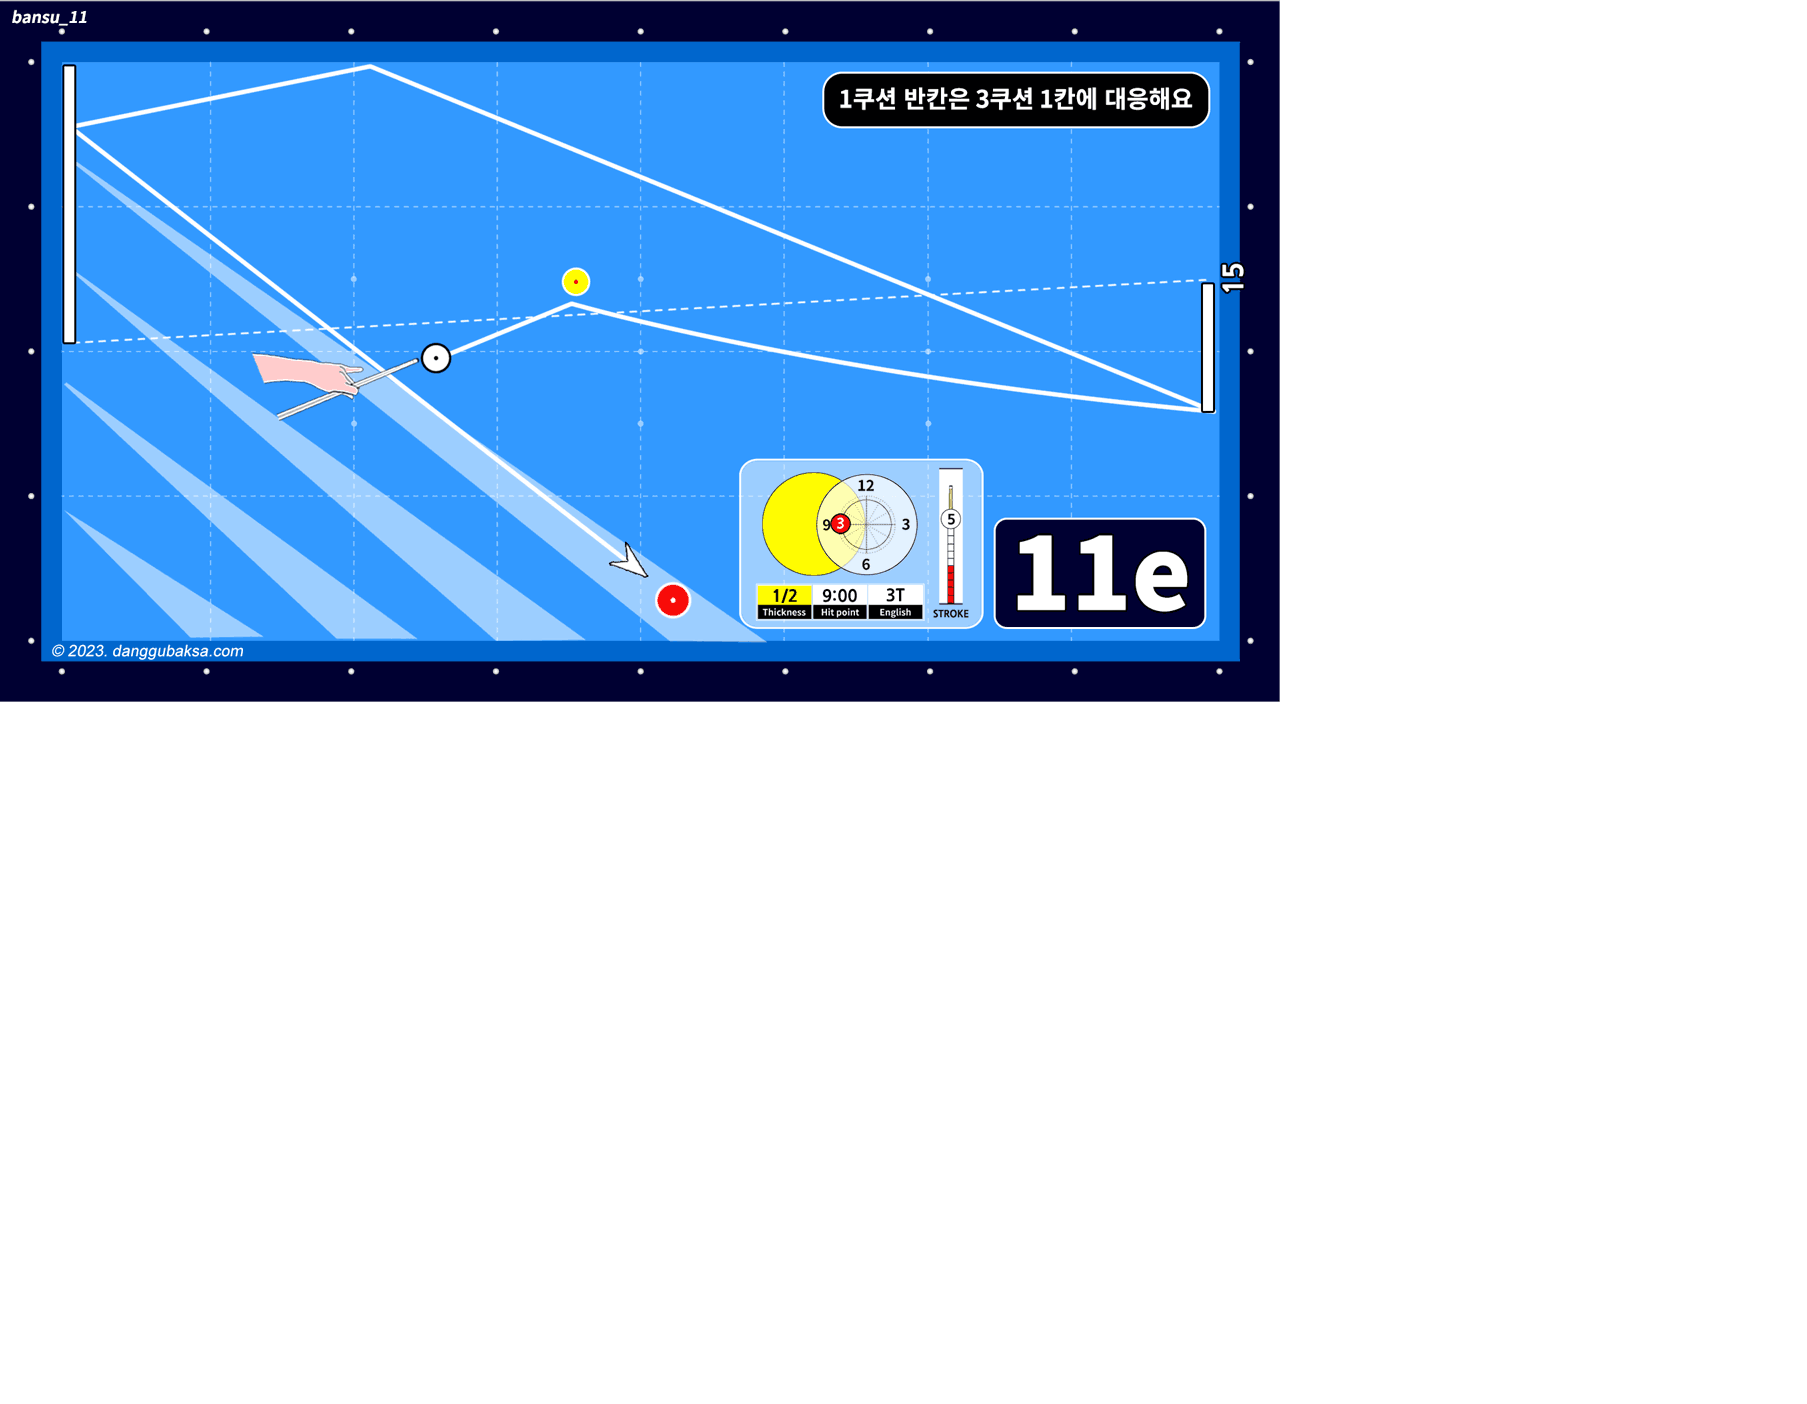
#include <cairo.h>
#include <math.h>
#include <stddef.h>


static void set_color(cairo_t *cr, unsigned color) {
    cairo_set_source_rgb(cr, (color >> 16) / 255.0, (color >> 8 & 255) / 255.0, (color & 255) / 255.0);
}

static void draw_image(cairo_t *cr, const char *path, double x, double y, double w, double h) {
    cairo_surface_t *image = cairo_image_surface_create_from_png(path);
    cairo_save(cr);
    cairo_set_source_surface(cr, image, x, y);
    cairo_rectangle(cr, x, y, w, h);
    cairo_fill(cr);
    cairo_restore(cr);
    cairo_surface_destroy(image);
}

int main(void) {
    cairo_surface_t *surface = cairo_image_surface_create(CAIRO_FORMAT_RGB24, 1807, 1404);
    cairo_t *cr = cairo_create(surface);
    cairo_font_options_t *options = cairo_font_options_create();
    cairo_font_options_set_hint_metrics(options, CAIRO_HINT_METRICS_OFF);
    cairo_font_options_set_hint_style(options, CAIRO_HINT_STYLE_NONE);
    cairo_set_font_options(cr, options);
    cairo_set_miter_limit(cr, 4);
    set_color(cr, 0xFFFFFF);
    cairo_paint(cr);
    draw_image(cr, "assets/img1.png", 0, 0, 1280, 702);
    cairo_surface_write_to_png(surface, "output.png");
    cairo_font_options_destroy(options);
    cairo_destroy(cr);
    cairo_surface_destroy(surface);
    return 0;
}
